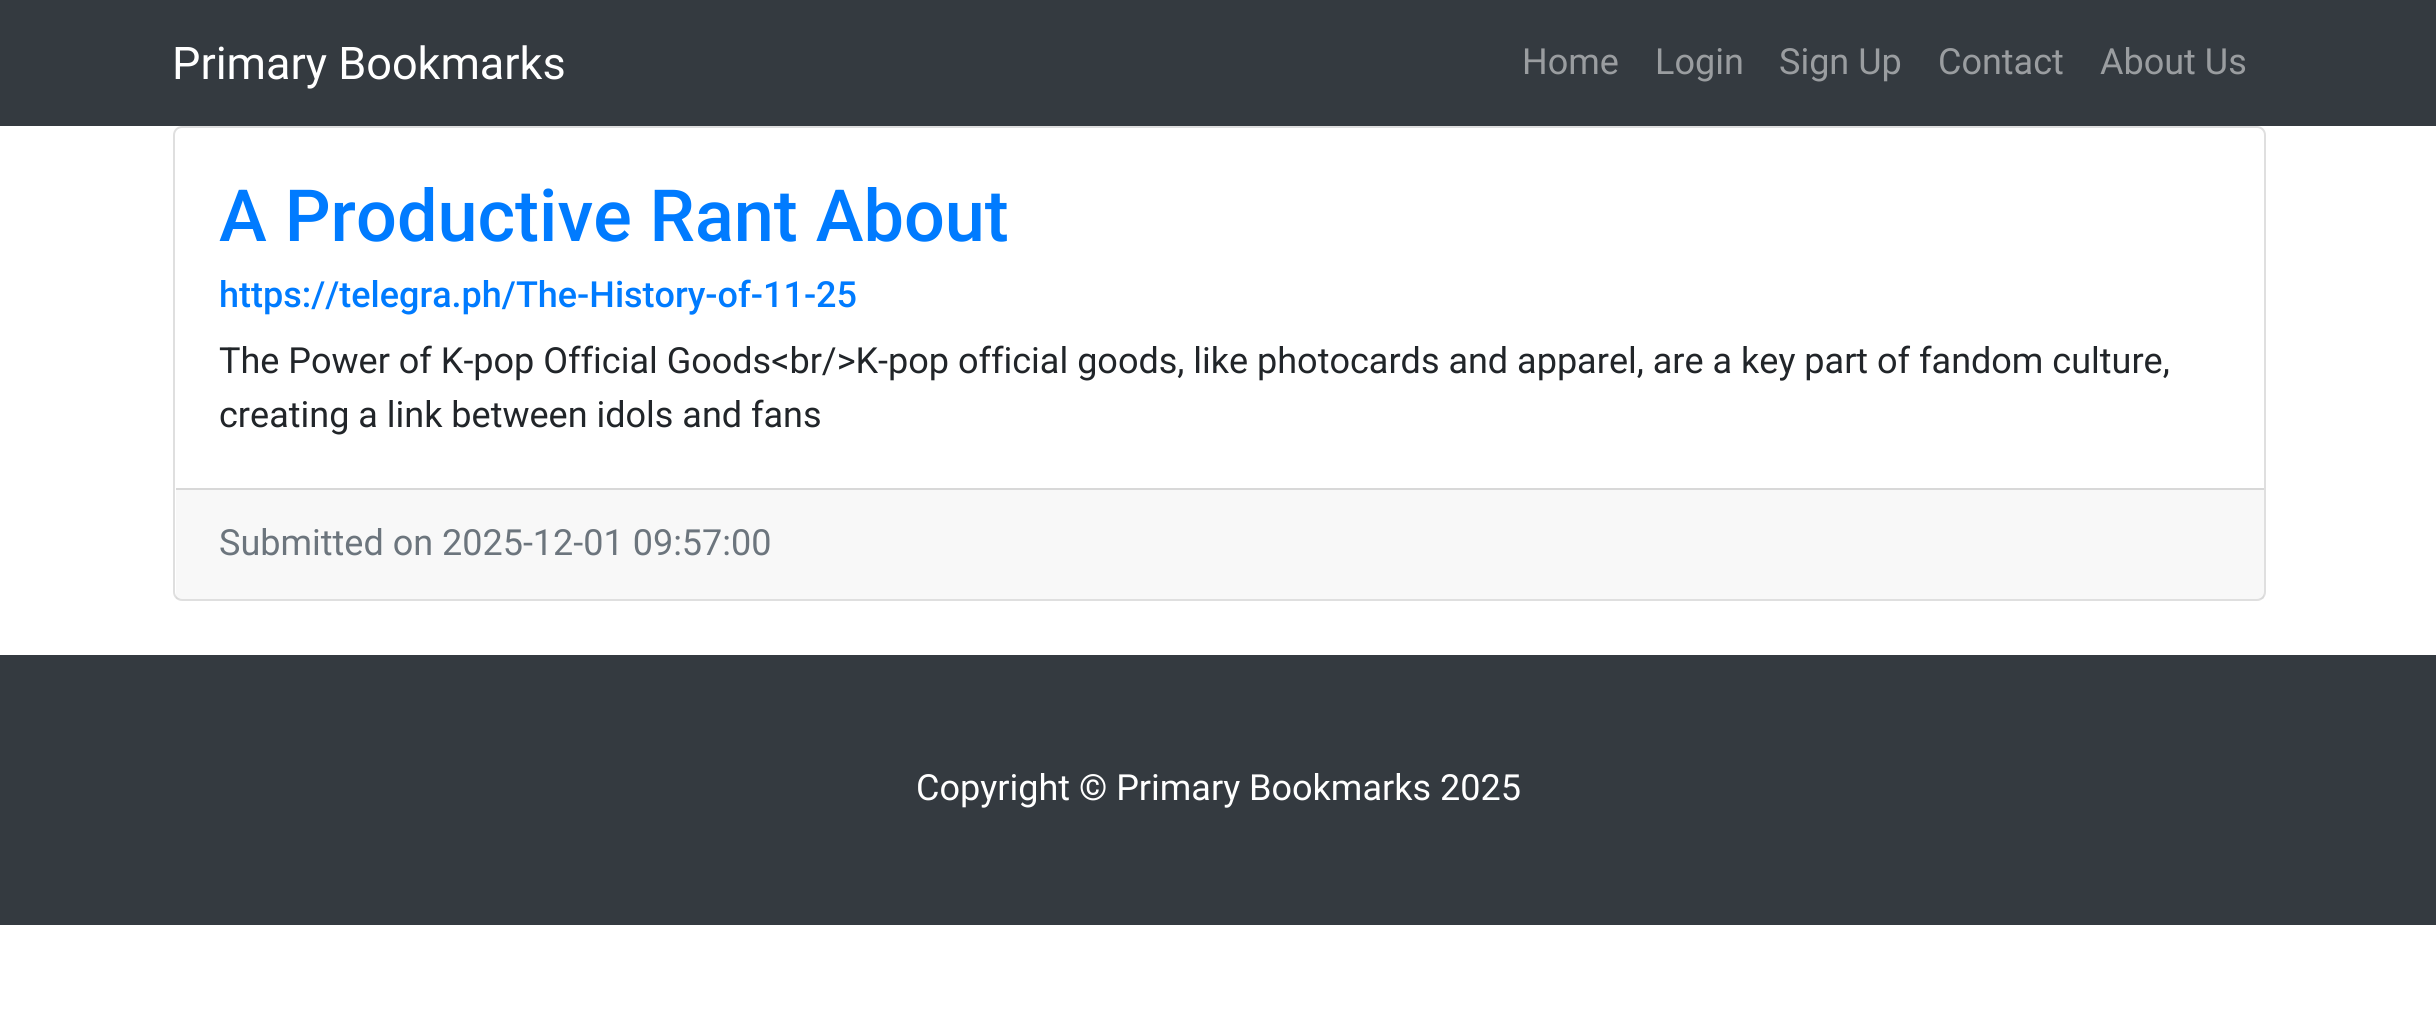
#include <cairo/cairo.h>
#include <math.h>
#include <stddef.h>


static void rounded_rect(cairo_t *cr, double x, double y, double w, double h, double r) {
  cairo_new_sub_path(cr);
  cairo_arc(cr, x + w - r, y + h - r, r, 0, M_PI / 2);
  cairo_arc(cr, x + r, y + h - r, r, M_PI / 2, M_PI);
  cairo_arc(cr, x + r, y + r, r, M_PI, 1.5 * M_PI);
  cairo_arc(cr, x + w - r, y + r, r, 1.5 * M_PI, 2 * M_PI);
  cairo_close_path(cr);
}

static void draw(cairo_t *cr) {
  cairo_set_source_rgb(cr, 1, 1, 1);
  cairo_paint(cr);
  cairo_set_source_rgb(cr, 52 / 255.0, 58 / 255.0, 64 / 255.0);
  cairo_rectangle(cr, 0, 0, 2436, 126);
  cairo_fill(cr);
  rounded_rect(cr, 174, 127, 2091, 473, 8);
  cairo_set_source_rgb(cr, 223 / 255.0, 223 / 255.0, 223 / 255.0);
  cairo_stroke(cr);
  cairo_set_source_rgba(cr, 0, 0, 0, 0.03);
  cairo_rectangle(cr, 176, 490, 2088, 109);
  cairo_fill(cr);
  cairo_set_source_rgb(cr, 216 / 255.0, 216 / 255.0, 216 / 255.0);
  cairo_rectangle(cr, 176, 488, 2088, 2);
  cairo_fill(cr);
  cairo_set_source_rgb(cr, 52 / 255.0, 58 / 255.0, 64 / 255.0);
  cairo_rectangle(cr, 0, 655, 2436, 270);
  cairo_fill(cr);
  cairo_select_font_face(cr, "Roboto", CAIRO_FONT_SLANT_NORMAL, CAIRO_FONT_WEIGHT_NORMAL);
  cairo_set_font_size(cr, 45);
  cairo_set_source_rgb(cr, 1, 1, 1);
  cairo_move_to(cr, 172, 79);
  cairo_show_text(cr, "Primary Bookmarks");
  cairo_set_font_size(cr, 36);
  cairo_set_source_rgb(cr, 154 / 255.0, 157 / 255.0, 160 / 255.0);
  cairo_move_to(cr, 1522, 74);
  cairo_show_text(cr, "Home");
  cairo_move_to(cr, 1655, 74);
  cairo_show_text(cr, "Login");
  cairo_move_to(cr, 1779, 74);
  cairo_show_text(cr, "Sign Up");
  cairo_move_to(cr, 1938, 74);
  cairo_show_text(cr, "Contact");
  cairo_move_to(cr, 2100, 74);
  cairo_show_text(cr, "About Us");
  cairo_select_font_face(cr, "Roboto Medium", CAIRO_FONT_SLANT_NORMAL, CAIRO_FONT_WEIGHT_NORMAL);
  cairo_set_font_size(cr, 72);
  cairo_set_source_rgb(cr, 0, 123 / 255.0, 1);
  cairo_move_to(cr, 219, 241);
  cairo_show_text(cr, "A Productive Rant About");
  cairo_set_font_size(cr, 36);
  cairo_move_to(cr, 219, 307);
  cairo_show_text(cr, "https://telegra.ph/The-History-of-11-25");
  cairo_select_font_face(cr, "Roboto", CAIRO_FONT_SLANT_NORMAL, CAIRO_FONT_WEIGHT_NORMAL);
  cairo_set_source_rgb(cr, 33 / 255.0, 37 / 255.0, 41 / 255.0);
  cairo_move_to(cr, 219, 373);
  cairo_show_text(cr, "The Power of K-pop Official Goods<br/>K-pop official goods, like photocards and apparel, are a key part of fandom culture,");
  cairo_move_to(cr, 219, 427);
  cairo_show_text(cr, "creating a link between idols and fans");
  cairo_set_source_rgb(cr, 108 / 255.0, 117 / 255.0, 125 / 255.0);
  cairo_move_to(cr, 219, 555);
  cairo_show_text(cr, "Submitted on 2025-12-01 09:57:00");
  cairo_set_source_rgb(cr, 1, 1, 1);
  cairo_move_to(cr, 916, 800);
  cairo_show_text(cr, "Copyright © Primary Bookmarks 2025");
}

int main(void) {
  cairo_surface_t *surface = cairo_image_surface_create(CAIRO_FORMAT_RGB24, 2436, 1023);
  cairo_t *cr = cairo_create(surface);
  cairo_font_options_t *options = cairo_font_options_create();
  cairo_font_options_set_hint_metrics(options, CAIRO_HINT_METRICS_OFF);
  cairo_font_options_set_hint_style(options, CAIRO_HINT_STYLE_NONE);
  cairo_set_font_options(cr, options);
  cairo_set_miter_limit(cr, 4);
  draw(cr);
  cairo_surface_write_to_png(surface, "out.png");
  cairo_font_options_destroy(options);
  cairo_destroy(cr);
  cairo_surface_destroy(surface);
  return 0;
}
